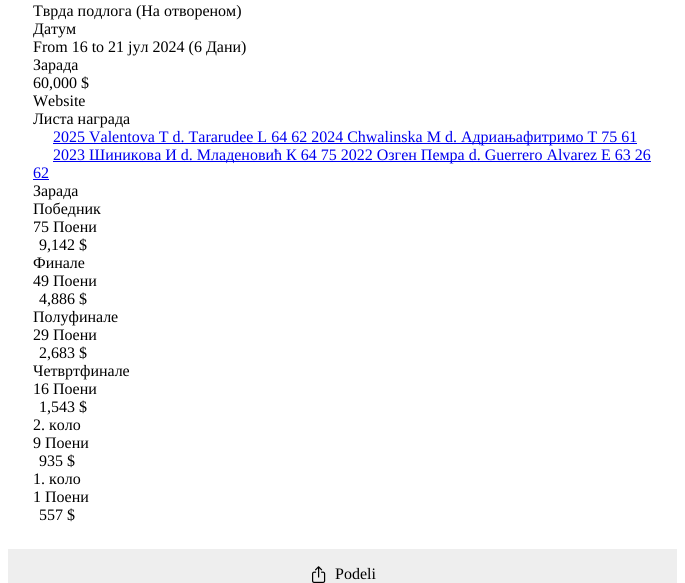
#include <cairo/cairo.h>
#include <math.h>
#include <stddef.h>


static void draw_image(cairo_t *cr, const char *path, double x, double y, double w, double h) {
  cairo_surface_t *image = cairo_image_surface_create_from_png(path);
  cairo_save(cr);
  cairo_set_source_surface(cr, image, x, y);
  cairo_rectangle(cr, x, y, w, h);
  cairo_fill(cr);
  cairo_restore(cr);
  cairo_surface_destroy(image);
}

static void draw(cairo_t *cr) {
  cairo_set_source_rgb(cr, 1, 1, 1);
  cairo_paint(cr);
  cairo_set_source_rgb(cr, 0, 0, 238 / 255.0);
  cairo_rectangle(cr, 53, 143, 544, 1);
  cairo_fill(cr);
  cairo_rectangle(cr, 597, 143, 40, 1);
  cairo_fill(cr);
  cairo_rectangle(cr, 53, 161, 598, 1);
  cairo_fill(cr);
  cairo_rectangle(cr, 33, 179, 16, 1);
  cairo_fill(cr);
  cairo_set_source_rgb(cr, 238 / 255.0, 238 / 255.0, 238 / 255.0);
  cairo_rectangle(cr, 8, 549, 669, 34);
  cairo_fill(cr);
  draw_image(cr, "images/1.png", 312, 566, 14, 17);
  cairo_select_font_face(cr, "Liberation Serif", CAIRO_FONT_SLANT_NORMAL, CAIRO_FONT_WEIGHT_NORMAL);
  cairo_set_font_size(cr, 16);
  cairo_set_source_rgb(cr, 0, 0, 0);
  cairo_move_to(cr, 33, 16);
  cairo_show_text(cr, "Тврда подлога (На отвореном)");
  cairo_move_to(cr, 33, 34);
  cairo_show_text(cr, "Датум");
  cairo_move_to(cr, 33, 52);
  cairo_show_text(cr, "From 16 to 21 јул 2024 (6 Дани)");
  cairo_move_to(cr, 33, 70);
  cairo_show_text(cr, "Зарада");
  cairo_move_to(cr, 33, 88);
  cairo_show_text(cr, "60,000 $");
  cairo_move_to(cr, 33, 106);
  cairo_show_text(cr, "Website");
  cairo_move_to(cr, 33, 124);
  cairo_show_text(cr, "Листа награда");
  cairo_set_source_rgb(cr, 0, 0, 238 / 255.0);
  cairo_move_to(cr, 53, 142);
  cairo_show_text(cr, "2025 Valentova T d. Tararudee L 64 62 2024 Chwalinska M d. Адриањафитримо Т 75 61");
  cairo_move_to(cr, 53, 160);
  cairo_show_text(cr, "2023 Шиникова И d. Младеновић К 64 75 2022 Озген Пемра d. Guerrero Alvarez E 63 26");
  cairo_move_to(cr, 33, 178);
  cairo_show_text(cr, "62");
  cairo_set_source_rgb(cr, 0, 0, 0);
  cairo_move_to(cr, 33, 196);
  cairo_show_text(cr, "Зарада");
  cairo_move_to(cr, 33, 214);
  cairo_show_text(cr, "Победник");
  cairo_move_to(cr, 33, 232);
  cairo_show_text(cr, "75 Поени");
  cairo_move_to(cr, 39, 250);
  cairo_show_text(cr, "9,142 $");
  cairo_move_to(cr, 33, 268);
  cairo_show_text(cr, "Финале");
  cairo_move_to(cr, 33, 286);
  cairo_show_text(cr, "49 Поени");
  cairo_move_to(cr, 39, 304);
  cairo_show_text(cr, "4,886 $");
  cairo_move_to(cr, 33, 322);
  cairo_show_text(cr, "Полуфинале");
  cairo_move_to(cr, 33, 340);
  cairo_show_text(cr, "29 Поени");
  cairo_move_to(cr, 39, 358);
  cairo_show_text(cr, "2,683 $");
  cairo_move_to(cr, 33, 376);
  cairo_show_text(cr, "Четвртфинале");
  cairo_move_to(cr, 33, 394);
  cairo_show_text(cr, "16 Поени");
  cairo_move_to(cr, 39, 412);
  cairo_show_text(cr, "1,543 $");
  cairo_move_to(cr, 33, 430);
  cairo_show_text(cr, "2. коло");
  cairo_move_to(cr, 33, 448);
  cairo_show_text(cr, "9 Поени");
  cairo_move_to(cr, 39, 466);
  cairo_show_text(cr, "935 $");
  cairo_move_to(cr, 33, 484);
  cairo_show_text(cr, "1. коло");
  cairo_move_to(cr, 33, 502);
  cairo_show_text(cr, "1 Поени");
  cairo_move_to(cr, 39, 520);
  cairo_show_text(cr, "557 $");
  cairo_move_to(cr, 335, 579);
  cairo_show_text(cr, "Podeli");
}

int main(void) {
  cairo_surface_t *surface = cairo_image_surface_create(CAIRO_FORMAT_RGB24, 685, 583);
  cairo_t *cr = cairo_create(surface);
  cairo_font_options_t *options = cairo_font_options_create();
  cairo_font_options_set_hint_metrics(options, CAIRO_HINT_METRICS_OFF);
  cairo_font_options_set_hint_style(options, CAIRO_HINT_STYLE_NONE);
  cairo_set_font_options(cr, options);
  cairo_set_miter_limit(cr, 4);
  draw(cr);
  cairo_surface_write_to_png(surface, "out.png");
  cairo_font_options_destroy(options);
  cairo_destroy(cr);
  cairo_surface_destroy(surface);
  return 0;
}
